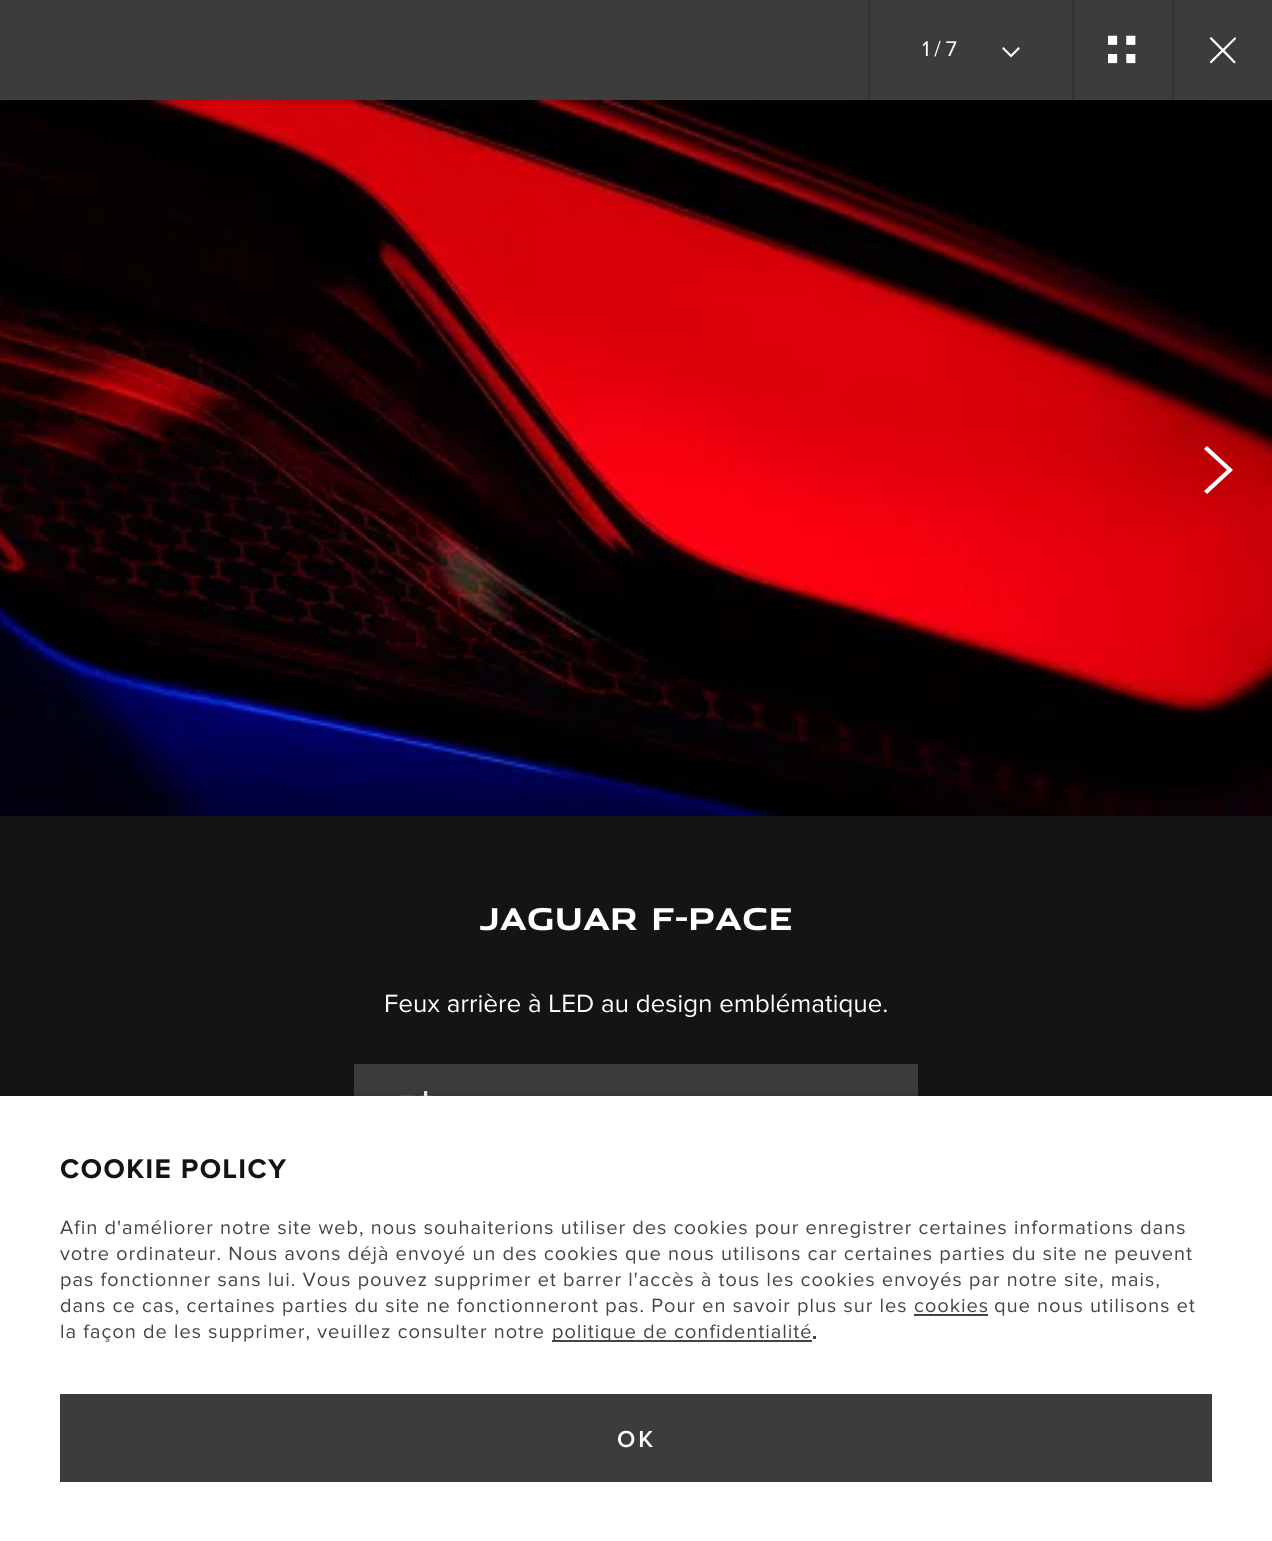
#include <cairo/cairo.h>
#include <math.h>
#include <stddef.h>


static void draw_spaced(cairo_t *cr, double x, double y, const char *s, double letter, double word) {
  cairo_move_to(cr, x, y);
  while (*s) {
    char ch[5] = {0};
    int n = 0;
    do ch[n++] = *s++; while ((*s & 0xC0) == 0x80);
    cairo_show_text(cr, ch);
    cairo_rel_move_to(cr, letter + word * (*ch == ' '), 0);
  }
}

static void rounded_rect(cairo_t *cr, double x, double y, double w, double h, double r) {
  cairo_new_sub_path(cr);
  cairo_arc(cr, x + w - r, y + h - r, r, 0, M_PI / 2);
  cairo_arc(cr, x + r, y + h - r, r, M_PI / 2, M_PI);
  cairo_arc(cr, x + r, y + r, r, M_PI, 1.5 * M_PI);
  cairo_arc(cr, x + w - r, y + r, r, 1.5 * M_PI, 2 * M_PI);
  cairo_close_path(cr);
}

static void draw_shadow(cairo_t *cr, double x, double y, double w, double h, double r, double blur, double alpha) {
  cairo_push_group_with_content(cr, CAIRO_CONTENT_ALPHA);
  cairo_set_operator(cr, CAIRO_OPERATOR_SOURCE);
  for (int i = 15; i >= -15 && fmin(w, h) + blur * i / 3 > 0; i -= 2) {
    double e = blur * i / 6;
    cairo_set_source_rgba(cr, 0, 0, 0, alpha * erfc((i - 1) / 8.5) / 2);
    rounded_rect(cr, x - e, y - e, w + 2 * e, h + 2 * e, fmax(0, fmin(r + e + blur * .6, fmin(w, h) / 2 + e)));
    cairo_fill(cr);
  }
  cairo_pattern_t *soft = cairo_pop_group(cr);
  cairo_mask(cr, soft);
  cairo_pattern_destroy(soft);
}

static void draw_image(cairo_t *cr, const char *path, double x, double y, double w, double h) {
  cairo_surface_t *image = cairo_image_surface_create_from_png(path);
  cairo_save(cr);
  cairo_set_source_surface(cr, image, x, y);
  cairo_rectangle(cr, x, y, w, h);
  cairo_fill(cr);
  cairo_restore(cr);
  cairo_surface_destroy(image);
}

static void draw(cairo_t *cr) {
  cairo_set_source_rgb(cr, 20 / 255.0, 20 / 255.0, 20 / 255.0);
  cairo_paint(cr);
  draw_image(cr, "images/4.png", 0, 100, 1272, 716);
  cairo_set_source_rgb(cr, 0, 0, 0);
  draw_shadow(cr, 0, 0, 1272, 100, 0, 4, 0.25);
  cairo_set_source_rgb(cr, 60 / 255.0, 60 / 255.0, 59 / 255.0);
  cairo_rectangle(cr, 0, 0, 1272, 100);
  cairo_fill(cr);
  cairo_set_source_rgb(cr, 51 / 255.0, 51 / 255.0, 51 / 255.0);
  cairo_rectangle(cr, 868, 0, 2, 100);
  cairo_fill(cr);
  draw_image(cr, "images/1.png", 922, 40, 35, 17);
  cairo_set_source_rgb(cr, 1, 1, 1);
  cairo_new_path(cr);
  cairo_move_to(cr, 1011, 57.5);
  cairo_line_to(cr, 1002, 48.5);
  cairo_line_to(cr, 1003.5, 47);
  cairo_line_to(cr, 1011, 54.5);
  cairo_line_to(cr, 1018.5, 47);
  cairo_line_to(cr, 1020, 48.5);
  cairo_close_path(cr);
  cairo_fill(cr);
  cairo_set_source_rgb(cr, 51 / 255.0, 51 / 255.0, 51 / 255.0);
  cairo_rectangle(cr, 1072, 0, 2, 100);
  cairo_fill(cr);
  draw_image(cr, "images/2.png", 1108, 35, 28, 29);
  cairo_rectangle(cr, 1172, 0, 2, 100);
  cairo_fill(cr);
  draw_image(cr, "images/3.png", 1210, 37, 26, 27);
  cairo_set_source_rgb(cr, 1, 1, 1);
  cairo_new_path(cr);
  cairo_move_to(cr, 1207, 494);
  cairo_line_to(cr, 1204, 491);
  cairo_line_to(cr, 1227, 470);
  cairo_line_to(cr, 1204, 449);
  cairo_line_to(cr, 1207, 446);
  cairo_line_to(cr, 1233, 470);
  cairo_close_path(cr);
  cairo_fill(cr);
  draw_image(cr, "images/5.png", 386, 993, 501, 25);
  cairo_set_source_rgb(cr, 60 / 255.0, 60 / 255.0, 59 / 255.0);
  cairo_rectangle(cr, 354, 1064, 564, 32);
  cairo_fill(cr);
  draw_image(cr, "images/6.png", 401, 1091, 31, 5);
  cairo_set_source_rgb(cr, 1 / 255.0, 1 / 255.0, 1 / 255.0);
  draw_shadow(cr, 0, 1096, 1272, 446, 0, 6, 0.25);
  cairo_set_source_rgb(cr, 1, 1, 1);
  cairo_rectangle(cr, 0, 1096, 1272, 445);
  cairo_fill(cr);
  draw_image(cr, "images/7.png", 60, 1159, 227, 20);
  draw_image(cr, "images/8.png", 60, 1220, 1125, 18);
  draw_image(cr, "images/9.png", 60, 1246, 1132, 18);
  draw_image(cr, "images/10.png", 61, 1272, 1098, 18);
  draw_image(cr, "images/11.png", 60, 1298, 846, 18);
  draw_image(cr, "images/12.png", 914, 1298, 74, 15);
  cairo_set_source_rgb(cr, 68 / 255.0, 68 / 255.0, 68 / 255.0);
  cairo_rectangle(cr, 914, 1314, 74, 2);
  cairo_fill(cr);
  draw_image(cr, "images/13.png", 995, 1298, 200, 18);
  draw_image(cr, "images/14.png", 61, 1324, 482, 18);
  draw_image(cr, "images/15.png", 553, 1324, 258, 16);
  cairo_rectangle(cr, 552, 1340, 260, 2);
  cairo_fill(cr);
  cairo_rectangle(cr, 813, 1336, 3, 3);
  cairo_fill(cr);
  cairo_set_source_rgb(cr, 60 / 255.0, 60 / 255.0, 59 / 255.0);
  cairo_rectangle(cr, 60, 1394, 1152, 88);
  cairo_fill(cr);
  cairo_select_font_face(cr, "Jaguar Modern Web", CAIRO_FONT_SLANT_NORMAL, CAIRO_FONT_WEIGHT_BOLD);
  cairo_set_font_size(cr, 30);
  cairo_set_source_rgb(cr, 1, 1, 1);
  cairo_move_to(cr, 479, 930);
  cairo_show_text(cr, "JAGUAR F-PACE");
  cairo_select_font_face(cr, "Proxima Nova SemiBold", CAIRO_FONT_SLANT_NORMAL, CAIRO_FONT_WEIGHT_NORMAL);
  cairo_set_font_size(cr, 24);
  draw_spaced(cr, 617, 1447, "OK", 3, 0);
}

int main(void) {
  cairo_surface_t *surface = cairo_image_surface_create(CAIRO_FORMAT_RGB24, 1272, 1541);
  cairo_t *cr = cairo_create(surface);
  cairo_font_options_t *options = cairo_font_options_create();
  cairo_font_options_set_hint_metrics(options, CAIRO_HINT_METRICS_OFF);
  cairo_font_options_set_hint_style(options, CAIRO_HINT_STYLE_NONE);
  cairo_set_font_options(cr, options);
  cairo_set_miter_limit(cr, 4);
  draw(cr);
  cairo_surface_write_to_png(surface, "out.png");
  cairo_font_options_destroy(options);
  cairo_destroy(cr);
  cairo_surface_destroy(surface);
  return 0;
}
